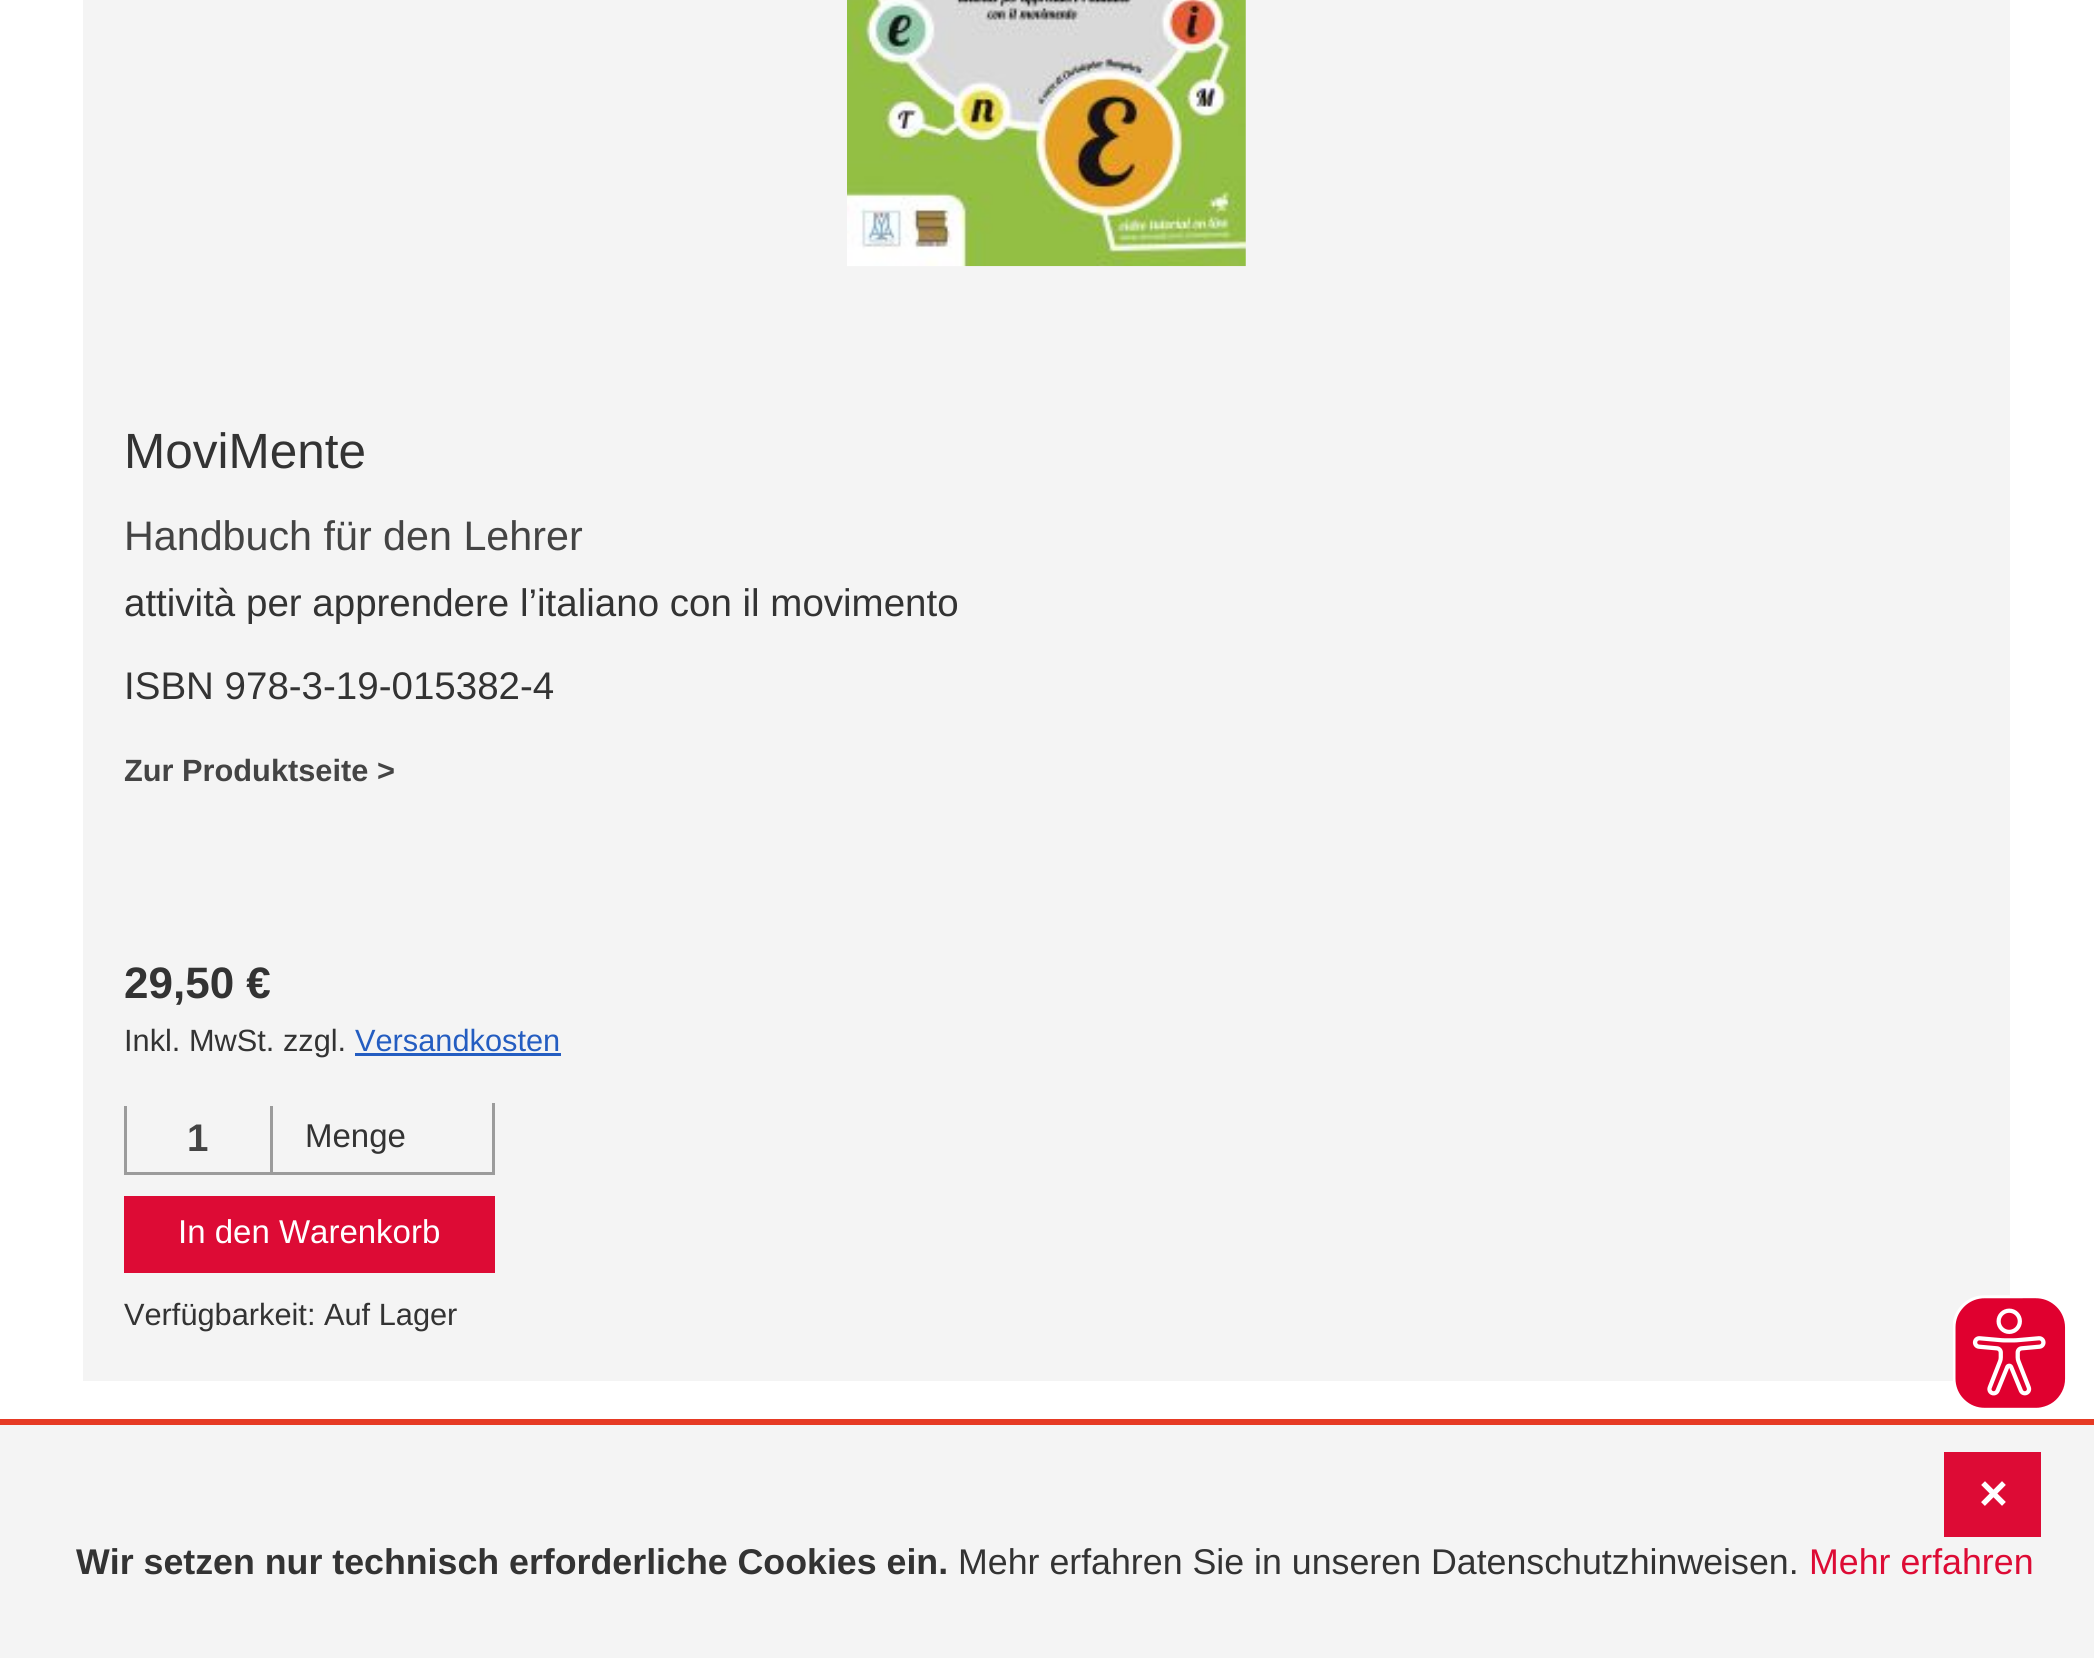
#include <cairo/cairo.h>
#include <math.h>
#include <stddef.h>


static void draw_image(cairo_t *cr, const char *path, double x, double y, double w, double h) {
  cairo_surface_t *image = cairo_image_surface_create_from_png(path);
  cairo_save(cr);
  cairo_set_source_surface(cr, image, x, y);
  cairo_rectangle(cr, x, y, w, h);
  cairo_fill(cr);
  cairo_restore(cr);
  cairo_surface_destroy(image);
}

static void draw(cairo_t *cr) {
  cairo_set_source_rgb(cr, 1, 1, 1);
  cairo_paint(cr);
  cairo_set_source_rgb(cr, 244 / 255.0, 244 / 255.0, 244 / 255.0);
  cairo_rectangle(cr, 83, 0, 1927, 1381);
  cairo_fill(cr);
  draw_image(cr, "images/1.png", 847, 0, 399, 267);
  cairo_set_source_rgb(cr, 36 / 255.0, 93 / 255.0, 193 / 255.0);
  cairo_rectangle(cr, 355, 1053, 206, 3);
  cairo_fill(cr);
  cairo_set_source_rgb(cr, 155 / 255.0, 155 / 255.0, 155 / 255.0);
  cairo_rectangle(cr, 124, 1172, 371, 3);
  cairo_fill(cr);
  cairo_rectangle(cr, 270, 1106, 3, 66);
  cairo_fill(cr);
  cairo_rectangle(cr, 124, 1106, 3, 66);
  cairo_fill(cr);
  cairo_rectangle(cr, 492, 1103, 3, 69);
  cairo_fill(cr);
  cairo_set_source_rgb(cr, 221 / 255.0, 11 / 255.0, 53 / 255.0);
  cairo_rectangle(cr, 124, 1196, 371, 77);
  cairo_fill(cr);
  draw_image(cr, "images/2.png", 1953, 1295, 113, 113);
  cairo_set_source_rgb(cr, 244 / 255.0, 244 / 255.0, 244 / 255.0);
  cairo_rectangle(cr, 0, 1425, 2094, 233);
  cairo_fill(cr);
  cairo_set_source_rgb(cr, 230 / 255.0, 58 / 255.0, 36 / 255.0);
  cairo_rectangle(cr, 0, 1419, 2094, 6);
  cairo_fill(cr);
  cairo_set_source_rgb(cr, 221 / 255.0, 11 / 255.0, 53 / 255.0);
  cairo_rectangle(cr, 1944, 1452, 97, 85);
  cairo_fill(cr);
  cairo_select_font_face(cr, "Liberation Sans", CAIRO_FONT_SLANT_NORMAL, CAIRO_FONT_WEIGHT_NORMAL);
  cairo_set_font_size(cr, 49.5);
  cairo_set_source_rgb(cr, 51 / 255.0, 51 / 255.0, 51 / 255.0);
  cairo_move_to(cr, 124, 468);
  cairo_show_text(cr, "MoviMente");
  cairo_set_font_size(cr, 41.25);
  cairo_set_source_rgb(cr, 68 / 255.0, 68 / 255.0, 68 / 255.0);
  cairo_move_to(cr, 124, 550);
  cairo_show_text(cr, "Handbuch für den Lehrer");
  cairo_set_font_size(cr, 38.5);
  cairo_set_source_rgb(cr, 51 / 255.0, 51 / 255.0, 51 / 255.0);
  cairo_move_to(cr, 124, 616);
  cairo_show_text(cr, "attività per apprendere l’italiano con il movimento");
  cairo_move_to(cr, 124, 699);
  cairo_show_text(cr, "ISBN 978-3-19-015382-4");
  cairo_select_font_face(cr, "Liberation Sans", CAIRO_FONT_SLANT_NORMAL, CAIRO_FONT_WEIGHT_BOLD);
  cairo_set_font_size(cr, 30.75);
  cairo_set_source_rgb(cr, 68 / 255.0, 68 / 255.0, 68 / 255.0);
  cairo_move_to(cr, 124, 781);
  cairo_show_text(cr, "Zur Produktseite >");
  cairo_set_font_size(cr, 44);
  cairo_set_source_rgb(cr, 51 / 255.0, 51 / 255.0, 51 / 255.0);
  cairo_move_to(cr, 124, 998);
  cairo_show_text(cr, "29,50 €");
  cairo_select_font_face(cr, "Liberation Sans", CAIRO_FONT_SLANT_NORMAL, CAIRO_FONT_WEIGHT_NORMAL);
  cairo_set_font_size(cr, 30.75);
  cairo_move_to(cr, 124, 1051);
  cairo_show_text(cr, "Inkl. MwSt. zzgl.");
  cairo_set_source_rgb(cr, 36 / 255.0, 93 / 255.0, 193 / 255.0);
  cairo_move_to(cr, 355, 1051);
  cairo_show_text(cr, "Versandkosten");
  cairo_select_font_face(cr, "Liberation Sans", CAIRO_FONT_SLANT_NORMAL, CAIRO_FONT_WEIGHT_BOLD);
  cairo_set_font_size(cr, 38.5);
  cairo_set_source_rgb(cr, 68 / 255.0, 68 / 255.0, 68 / 255.0);
  cairo_move_to(cr, 187, 1151);
  cairo_show_text(cr, "1");
  cairo_select_font_face(cr, "Liberation Sans", CAIRO_FONT_SLANT_NORMAL, CAIRO_FONT_WEIGHT_NORMAL);
  cairo_set_font_size(cr, 33);
  cairo_set_source_rgb(cr, 51 / 255.0, 51 / 255.0, 51 / 255.0);
  cairo_move_to(cr, 305, 1147);
  cairo_show_text(cr, "Menge");
  cairo_set_source_rgb(cr, 1, 1, 1);
  cairo_move_to(cr, 178, 1243);
  cairo_show_text(cr, "In den Warenkorb");
  cairo_set_font_size(cr, 30.75);
  cairo_set_source_rgb(cr, 51 / 255.0, 51 / 255.0, 51 / 255.0);
  cairo_move_to(cr, 124, 1325);
  cairo_show_text(cr, "Verfügbarkeit: Auf Lager");
  cairo_select_font_face(cr, "Liberation Sans", CAIRO_FONT_SLANT_NORMAL, CAIRO_FONT_WEIGHT_BOLD);
  cairo_set_font_size(cr, 49.5);
  cairo_set_source_rgb(cr, 1, 1, 1);
  cairo_move_to(cr, 1979, 1510);
  cairo_show_text(cr, "×");
  cairo_set_font_size(cr, 35.75);
  cairo_set_source_rgb(cr, 51 / 255.0, 51 / 255.0, 51 / 255.0);
  cairo_move_to(cr, 76, 1574);
  cairo_show_text(cr, "Wir setzen nur technisch erforderliche Cookies ein.");
  cairo_select_font_face(cr, "Liberation Sans", CAIRO_FONT_SLANT_NORMAL, CAIRO_FONT_WEIGHT_NORMAL);
  cairo_move_to(cr, 958, 1574);
  cairo_show_text(cr, "Mehr erfahren Sie in unseren Datenschutzhinweisen.");
  cairo_set_source_rgb(cr, 221 / 255.0, 11 / 255.0, 53 / 255.0);
  cairo_move_to(cr, 1809, 1574);
  cairo_show_text(cr, "Mehr erfahren");
}

int main(void) {
  cairo_surface_t *surface = cairo_image_surface_create(CAIRO_FORMAT_RGB24, 2094, 1658);
  cairo_t *cr = cairo_create(surface);
  cairo_font_options_t *options = cairo_font_options_create();
  cairo_font_options_set_hint_metrics(options, CAIRO_HINT_METRICS_OFF);
  cairo_font_options_set_hint_style(options, CAIRO_HINT_STYLE_NONE);
  cairo_set_font_options(cr, options);
  cairo_set_miter_limit(cr, 4);
  draw(cr);
  cairo_surface_write_to_png(surface, "out.png");
  cairo_font_options_destroy(options);
  cairo_destroy(cr);
  cairo_surface_destroy(surface);
  return 0;
}
